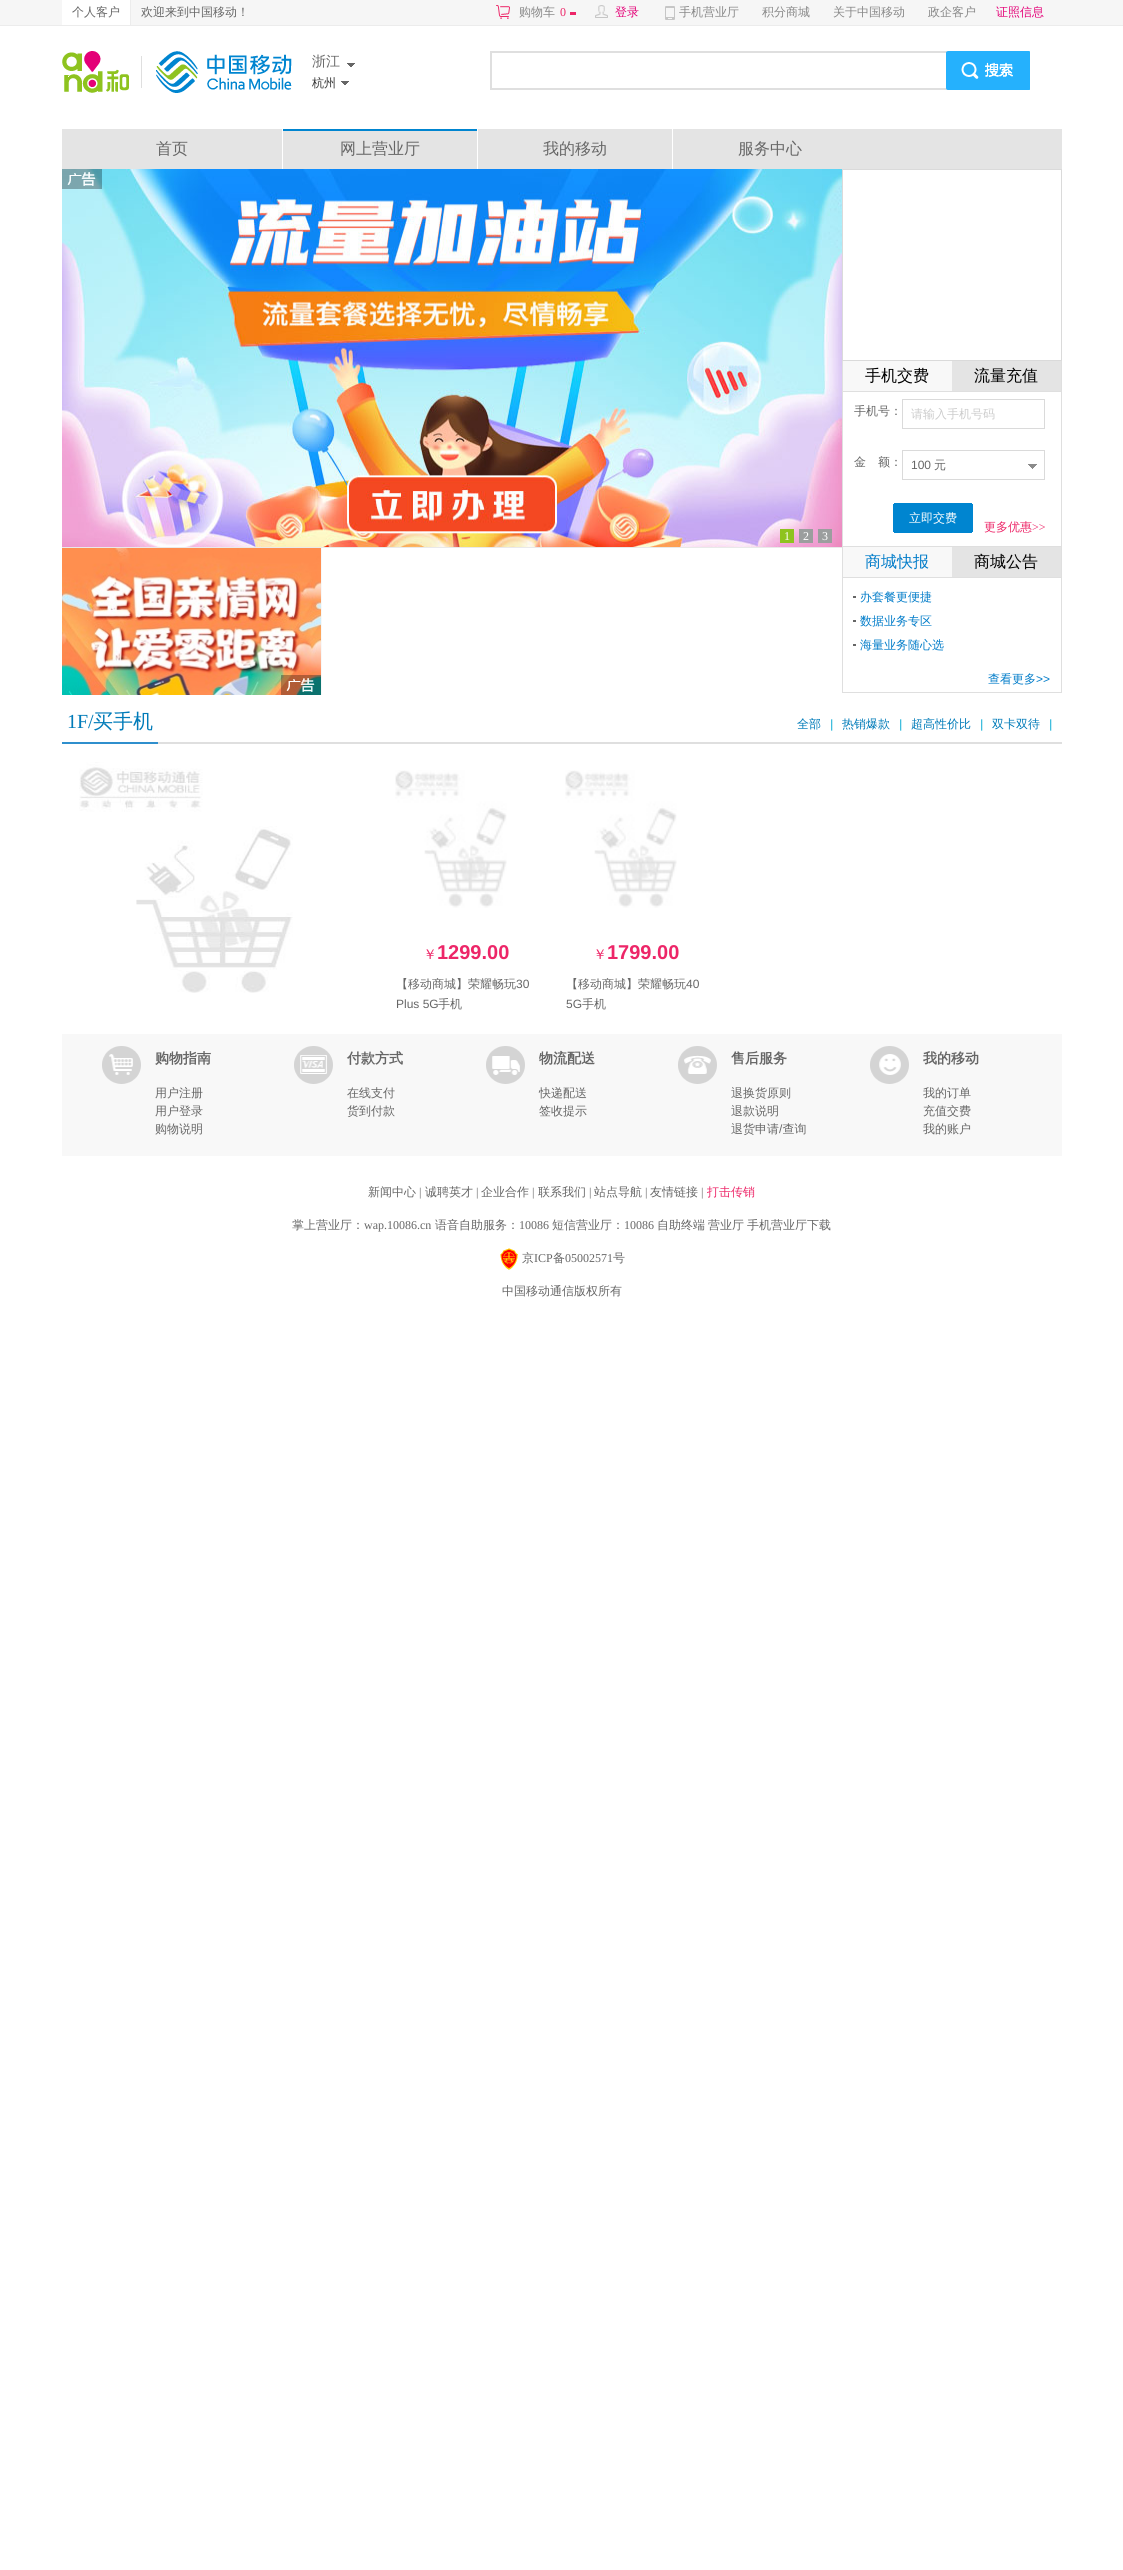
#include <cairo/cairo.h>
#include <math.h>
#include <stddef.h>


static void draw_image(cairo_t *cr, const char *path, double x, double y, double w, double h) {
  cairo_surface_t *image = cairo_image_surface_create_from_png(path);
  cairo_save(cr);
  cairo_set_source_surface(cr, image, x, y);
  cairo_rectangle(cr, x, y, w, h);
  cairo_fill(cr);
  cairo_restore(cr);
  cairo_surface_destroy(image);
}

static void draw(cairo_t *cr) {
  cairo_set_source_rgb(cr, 1, 1, 1);
  cairo_paint(cr);
  cairo_set_source_rgb(cr, 246 / 255.0, 246 / 255.0, 246 / 255.0);
  cairo_rectangle(cr, 0, 0, 1123, 25);
  cairo_fill(cr);
  cairo_set_source_rgb(cr, 236 / 255.0, 236 / 255.0, 236 / 255.0);
  cairo_rectangle(cr, 0, 25, 1123, 1);
  cairo_fill(cr);
  cairo_set_source_rgb(cr, 1, 1, 1);
  cairo_rectangle(cr, 62, 0, 68, 25);
  cairo_fill(cr);
  cairo_set_source_rgb(cr, 236 / 255.0, 236 / 255.0, 236 / 255.0);
  cairo_rectangle(cr, 130, 0, 1, 25);
  cairo_fill(cr);
  draw_image(cr, "images/1.png", 496, 5, 14, 14);
  cairo_set_source_rgb(cr, 237 / 255.0, 38 / 255.0, 104 / 255.0);
  cairo_rectangle(cr, 570, 12, 6, 3);
  cairo_fill(cr);
  draw_image(cr, "images/2.png", 595, 5, 13, 13);
  draw_image(cr, "images/3.png", 665, 6, 10, 14);
  draw_image(cr, "images/4.png", 62, 51, 230, 42);
  draw_image(cr, "images/5.png", 347, 63, 8, 4);
  draw_image(cr, "images/5.png", 341, 81, 8, 4);
  draw_image(cr, "images/6.png", 490, 51, 540, 39);
  cairo_set_source_rgb(cr, 228 / 255.0, 228 / 255.0, 228 / 255.0);
  cairo_rectangle(cr, 62, 129, 1000, 40);
  cairo_fill(cr);
  cairo_set_source_rgb(cr, 1, 1, 1);
  cairo_rectangle(cr, 282, 129, 1, 40);
  cairo_fill(cr);
  cairo_set_source_rgb(cr, 0, 133 / 255.0, 208 / 255.0);
  cairo_rectangle(cr, 283, 129, 194, 2);
  cairo_fill(cr);
  cairo_set_source_rgb(cr, 1, 1, 1);
  cairo_rectangle(cr, 477, 129, 1, 40);
  cairo_fill(cr);
  cairo_rectangle(cr, 672, 129, 1, 40);
  cairo_fill(cr);
  cairo_set_source_rgb(cr, 233 / 255.0, 233 / 255.0, 233 / 255.0);
  cairo_rectangle(cr, 62, 547, 780, 1);
  cairo_fill(cr);
  draw_image(cr, "images/7.png", 62, 169, 780, 378);
  draw_image(cr, "images/8.png", 62, 169, 40, 20);
  cairo_set_source_rgb(cr, 142 / 255.0, 195 / 255.0, 31 / 255.0);
  cairo_rectangle(cr, 780, 529, 14, 14);
  cairo_fill(cr);
  cairo_set_source_rgb(cr, 155 / 255.0, 158 / 255.0, 158 / 255.0);
  cairo_rectangle(cr, 799, 529, 14, 14);
  cairo_fill(cr);
  cairo_rectangle(cr, 818, 529, 14, 14);
  cairo_fill(cr);
  cairo_set_source_rgb(cr, 248 / 255.0, 248 / 255.0, 248 / 255.0);
  cairo_rectangle(cr, 321, 548, 1, 147);
  cairo_fill(cr);
  draw_image(cr, "images/9.png", 62, 548, 259, 147);
  draw_image(cr, "images/10.png", 281, 675, 40, 20);
  cairo_rectangle(cr, 842.5, 169.5, 219, 191);
  cairo_set_source_rgb(cr, 218 / 255.0, 218 / 255.0, 218 / 255.0);
  cairo_set_line_width(cr, 1);
  cairo_stroke(cr);
  cairo_set_source_rgb(cr, 223 / 255.0, 223 / 255.0, 223 / 255.0);
  cairo_rectangle(cr, 1061, 361, 1, 332);
  cairo_fill(cr);
  cairo_rectangle(cr, 842, 546, 220, 1);
  cairo_fill(cr);
  cairo_rectangle(cr, 842, 361, 1, 186);
  cairo_fill(cr);
  cairo_set_source_rgb(cr, 228 / 255.0, 228 / 255.0, 228 / 255.0);
  cairo_rectangle(cr, 952, 361, 109, 30);
  cairo_fill(cr);
  cairo_set_source_rgb(cr, 223 / 255.0, 223 / 255.0, 223 / 255.0);
  cairo_rectangle(cr, 843, 391, 218, 1);
  cairo_fill(cr);
  cairo_set_source_rgb(cr, 248 / 255.0, 248 / 255.0, 248 / 255.0);
  cairo_rectangle(cr, 843, 361, 109, 30);
  cairo_fill(cr);
  cairo_rectangle(cr, 902.5, 399.5, 142, 29);
  cairo_set_source_rgb(cr, 218 / 255.0, 218 / 255.0, 218 / 255.0);
  cairo_stroke(cr);
  cairo_rectangle(cr, 902.5, 450.5, 142, 29);
  cairo_stroke(cr);
  draw_image(cr, "images/11.png", 1028, 464, 9, 5);
  cairo_set_source_rgb(cr, 0, 133 / 255.0, 208 / 255.0);
  cairo_rectangle(cr, 894, 503, 78, 30);
  cairo_fill(cr);
  cairo_rectangle(cr, 893, 504, 1, 28);
  cairo_fill(cr);
  cairo_rectangle(cr, 972, 504, 1, 28);
  cairo_fill(cr);
  cairo_set_source_rgb(cr, 223 / 255.0, 223 / 255.0, 223 / 255.0);
  cairo_rectangle(cr, 842, 692, 220, 1);
  cairo_fill(cr);
  cairo_rectangle(cr, 842, 547, 1, 146);
  cairo_fill(cr);
  cairo_set_source_rgb(cr, 228 / 255.0, 228 / 255.0, 228 / 255.0);
  cairo_rectangle(cr, 952, 547, 109, 30);
  cairo_fill(cr);
  cairo_set_source_rgb(cr, 223 / 255.0, 223 / 255.0, 223 / 255.0);
  cairo_rectangle(cr, 843, 577, 218, 1);
  cairo_fill(cr);
  cairo_set_source_rgb(cr, 248 / 255.0, 248 / 255.0, 248 / 255.0);
  cairo_rectangle(cr, 843, 547, 109, 30);
  cairo_fill(cr);
  cairo_set_source_rgb(cr, 102 / 255.0, 102 / 255.0, 102 / 255.0);
  cairo_rectangle(cr, 853, 596, 3, 2);
  cairo_fill(cr);
  cairo_rectangle(cr, 853, 620, 3, 2);
  cairo_fill(cr);
  cairo_rectangle(cr, 853, 644, 3, 2);
  cairo_fill(cr);
  cairo_set_source_rgb(cr, 223 / 255.0, 223 / 255.0, 223 / 255.0);
  cairo_rectangle(cr, 158, 742, 904, 2);
  cairo_fill(cr);
  cairo_set_source_rgb(cr, 47 / 255.0, 143 / 255.0, 205 / 255.0);
  cairo_rectangle(cr, 62, 742, 96, 2);
  cairo_fill(cr);
  draw_image(cr, "images/12.png", 79, 762, 214, 231);
  draw_image(cr, "images/13.png", 395, 770, 112, 138);
  draw_image(cr, "images/13.png", 565, 770, 112, 138);
  cairo_set_source_rgb(cr, 248 / 255.0, 248 / 255.0, 248 / 255.0);
  cairo_rectangle(cr, 62, 1034, 1000, 122);
  cairo_fill(cr);
  draw_image(cr, "images/14.png", 102, 1046, 39, 38);
  draw_image(cr, "images/15.png", 294, 1046, 39, 38);
  draw_image(cr, "images/16.png", 486, 1046, 39, 38);
  draw_image(cr, "images/17.png", 678, 1046, 39, 38);
  draw_image(cr, "images/18.png", 870, 1046, 39, 38);
  draw_image(cr, "images/19.png", 500, 1248, 18, 22);
  cairo_select_font_face(cr, "WenQuanYi Zen Hei Medium", CAIRO_FONT_SLANT_NORMAL, CAIRO_FONT_WEIGHT_NORMAL);
  cairo_set_font_size(cr, 12);
  cairo_set_source_rgb(cr, 102 / 255.0, 102 / 255.0, 102 / 255.0);
  cairo_move_to(cr, 72, 16);
  cairo_show_text(cr, "个人客户");
  cairo_move_to(cr, 141, 16);
  cairo_show_text(cr, "欢迎来到中国移动！");
  cairo_set_source_rgb(cr, 136 / 255.0, 136 / 255.0, 136 / 255.0);
  cairo_move_to(cr, 519, 16);
  cairo_show_text(cr, "购物车");
  cairo_select_font_face(cr, "Liberation Serif", CAIRO_FONT_SLANT_NORMAL, CAIRO_FONT_WEIGHT_NORMAL);
  cairo_set_source_rgb(cr, 237 / 255.0, 38 / 255.0, 104 / 255.0);
  cairo_move_to(cr, 560, 16);
  cairo_show_text(cr, "0");
  cairo_select_font_face(cr, "WenQuanYi Zen Hei Medium", CAIRO_FONT_SLANT_NORMAL, CAIRO_FONT_WEIGHT_NORMAL);
  cairo_set_source_rgb(cr, 228 / 255.0, 0, 119 / 255.0);
  cairo_move_to(cr, 615, 16);
  cairo_show_text(cr, "登录");
  cairo_set_source_rgb(cr, 136 / 255.0, 136 / 255.0, 136 / 255.0);
  cairo_move_to(cr, 679, 16);
  cairo_show_text(cr, "手机营业厅");
  cairo_move_to(cr, 762, 16);
  cairo_show_text(cr, "积分商城");
  cairo_move_to(cr, 833, 16);
  cairo_show_text(cr, "关于中国移动");
  cairo_move_to(cr, 928, 16);
  cairo_show_text(cr, "政企客户");
  cairo_set_source_rgb(cr, 228 / 255.0, 0, 119 / 255.0);
  cairo_move_to(cr, 996, 16);
  cairo_show_text(cr, "证照信息");
  cairo_set_font_size(cr, 14);
  cairo_set_source_rgb(cr, 102 / 255.0, 102 / 255.0, 102 / 255.0);
  cairo_move_to(cr, 312, 66);
  cairo_show_text(cr, "浙江");
  cairo_set_font_size(cr, 12);
  cairo_set_source_rgb(cr, 51 / 255.0, 51 / 255.0, 51 / 255.0);
  cairo_move_to(cr, 312, 87);
  cairo_show_text(cr, "杭州");
  cairo_set_font_size(cr, 16);
  cairo_set_source_rgb(cr, 102 / 255.0, 102 / 255.0, 102 / 255.0);
  cairo_move_to(cr, 156, 154);
  cairo_show_text(cr, "首页");
  cairo_move_to(cr, 340, 154);
  cairo_show_text(cr, "网上营业厅");
  cairo_move_to(cr, 543, 154);
  cairo_show_text(cr, "我的移动");
  cairo_move_to(cr, 738, 154);
  cairo_show_text(cr, "服务中心");
  cairo_select_font_face(cr, "Liberation Serif", CAIRO_FONT_SLANT_NORMAL, CAIRO_FONT_WEIGHT_NORMAL);
  cairo_set_font_size(cr, 12);
  cairo_set_source_rgb(cr, 1, 1, 1);
  cairo_move_to(cr, 784, 540);
  cairo_show_text(cr, "1");
  cairo_move_to(cr, 803, 540);
  cairo_show_text(cr, "2");
  cairo_move_to(cr, 822, 540);
  cairo_show_text(cr, "3");
  cairo_select_font_face(cr, "WenQuanYi Zen Hei Medium", CAIRO_FONT_SLANT_NORMAL, CAIRO_FONT_WEIGHT_NORMAL);
  cairo_set_font_size(cr, 16);
  cairo_set_source_rgb(cr, 0, 0, 0);
  cairo_move_to(cr, 865, 381);
  cairo_show_text(cr, "手机交费");
  cairo_move_to(cr, 974, 381);
  cairo_show_text(cr, "流量充值");
  cairo_set_font_size(cr, 12);
  cairo_set_source_rgb(cr, 102 / 255.0, 102 / 255.0, 102 / 255.0);
  cairo_move_to(cr, 854, 415);
  cairo_show_text(cr, "手机号：");
  cairo_set_source_rgb(cr, 204 / 255.0, 204 / 255.0, 204 / 255.0);
  cairo_move_to(cr, 911, 418);
  cairo_show_text(cr, "请输入手机号码");
  cairo_set_source_rgb(cr, 102 / 255.0, 102 / 255.0, 102 / 255.0);
  cairo_move_to(cr, 854, 466);
  cairo_show_text(cr, "金　额：");
  cairo_select_font_face(cr, "Liberation Sans", CAIRO_FONT_SLANT_NORMAL, CAIRO_FONT_WEIGHT_NORMAL);
  cairo_move_to(cr, 911, 469);
  cairo_show_text(cr, "100");
  cairo_select_font_face(cr, "WenQuanYi Zen Hei Medium", CAIRO_FONT_SLANT_NORMAL, CAIRO_FONT_WEIGHT_NORMAL);
  cairo_move_to(cr, 934, 469);
  cairo_show_text(cr, "元");
  cairo_set_source_rgb(cr, 1, 1, 1);
  cairo_move_to(cr, 909, 522);
  cairo_show_text(cr, "立即交费");
  cairo_set_source_rgb(cr, 237 / 255.0, 38 / 255.0, 104 / 255.0);
  cairo_move_to(cr, 984, 531);
  cairo_show_text(cr, "更多优惠");
  cairo_select_font_face(cr, "Liberation Serif", CAIRO_FONT_SLANT_NORMAL, CAIRO_FONT_WEIGHT_NORMAL);
  cairo_move_to(cr, 1032, 531);
  cairo_show_text(cr, ">>");
  cairo_select_font_face(cr, "WenQuanYi Zen Hei Medium", CAIRO_FONT_SLANT_NORMAL, CAIRO_FONT_WEIGHT_NORMAL);
  cairo_set_font_size(cr, 16);
  cairo_set_source_rgb(cr, 1 / 255.0, 124 / 255.0, 201 / 255.0);
  cairo_move_to(cr, 865, 567);
  cairo_show_text(cr, "商城快报");
  cairo_set_source_rgb(cr, 0, 0, 0);
  cairo_move_to(cr, 974, 567);
  cairo_show_text(cr, "商城公告");
  cairo_set_font_size(cr, 12);
  cairo_set_source_rgb(cr, 1 / 255.0, 124 / 255.0, 201 / 255.0);
  cairo_move_to(cr, 860, 601);
  cairo_show_text(cr, "办套餐更便捷");
  cairo_move_to(cr, 860, 625);
  cairo_show_text(cr, "数据业务专区");
  cairo_move_to(cr, 860, 649);
  cairo_show_text(cr, "海量业务随心选");
  cairo_move_to(cr, 988, 683);
  cairo_show_text(cr, "查看更多");
  cairo_select_font_face(cr, "Liberation Sans", CAIRO_FONT_SLANT_NORMAL, CAIRO_FONT_WEIGHT_NORMAL);
  cairo_move_to(cr, 1036, 683);
  cairo_show_text(cr, ">>");
  cairo_select_font_face(cr, "Liberation Serif", CAIRO_FONT_SLANT_NORMAL, CAIRO_FONT_WEIGHT_NORMAL);
  cairo_set_font_size(cr, 20);
  cairo_set_source_rgb(cr, 0, 123 / 255.0, 185 / 255.0);
  cairo_move_to(cr, 67, 728);
  cairo_show_text(cr, "1F/");
  cairo_select_font_face(cr, "WenQuanYi Zen Hei Medium", CAIRO_FONT_SLANT_NORMAL, CAIRO_FONT_WEIGHT_NORMAL);
  cairo_move_to(cr, 93, 728);
  cairo_show_text(cr, "买手机");
  cairo_set_font_size(cr, 12);
  cairo_move_to(cr, 797, 728);
  cairo_show_text(cr, "全部");
  cairo_select_font_face(cr, "Liberation Sans", CAIRO_FONT_SLANT_ITALIC, CAIRO_FONT_WEIGHT_NORMAL);
  cairo_set_source_rgb(cr, 3 / 255.0, 169 / 255.0, 211 / 255.0);
  cairo_move_to(cr, 830, 728);
  cairo_show_text(cr, "|");
  cairo_select_font_face(cr, "WenQuanYi Zen Hei Medium", CAIRO_FONT_SLANT_NORMAL, CAIRO_FONT_WEIGHT_NORMAL);
  cairo_set_source_rgb(cr, 0, 123 / 255.0, 185 / 255.0);
  cairo_move_to(cr, 842, 728);
  cairo_show_text(cr, "热销爆款");
  cairo_select_font_face(cr, "Liberation Sans", CAIRO_FONT_SLANT_ITALIC, CAIRO_FONT_WEIGHT_NORMAL);
  cairo_set_source_rgb(cr, 3 / 255.0, 169 / 255.0, 211 / 255.0);
  cairo_move_to(cr, 899, 728);
  cairo_show_text(cr, "|");
  cairo_select_font_face(cr, "WenQuanYi Zen Hei Medium", CAIRO_FONT_SLANT_NORMAL, CAIRO_FONT_WEIGHT_NORMAL);
  cairo_set_source_rgb(cr, 0, 123 / 255.0, 185 / 255.0);
  cairo_move_to(cr, 911, 728);
  cairo_show_text(cr, "超高性价比");
  cairo_select_font_face(cr, "Liberation Sans", CAIRO_FONT_SLANT_ITALIC, CAIRO_FONT_WEIGHT_NORMAL);
  cairo_set_source_rgb(cr, 3 / 255.0, 169 / 255.0, 211 / 255.0);
  cairo_move_to(cr, 980, 728);
  cairo_show_text(cr, "|");
  cairo_select_font_face(cr, "WenQuanYi Zen Hei Medium", CAIRO_FONT_SLANT_NORMAL, CAIRO_FONT_WEIGHT_NORMAL);
  cairo_set_source_rgb(cr, 0, 123 / 255.0, 185 / 255.0);
  cairo_move_to(cr, 992, 728);
  cairo_show_text(cr, "双卡双待");
  cairo_select_font_face(cr, "Liberation Sans", CAIRO_FONT_SLANT_ITALIC, CAIRO_FONT_WEIGHT_NORMAL);
  cairo_set_source_rgb(cr, 3 / 255.0, 169 / 255.0, 211 / 255.0);
  cairo_move_to(cr, 1049, 728);
  cairo_show_text(cr, "|");
  cairo_select_font_face(cr, "WenQuanYi Zen Hei Medium", CAIRO_FONT_SLANT_NORMAL, CAIRO_FONT_WEIGHT_NORMAL);
  cairo_set_font_size(cr, 14);
  cairo_set_source_rgb(cr, 237 / 255.0, 38 / 255.0, 104 / 255.0);
  cairo_move_to(cr, 423, 959);
  cairo_show_text(cr, "￥");
  cairo_select_font_face(cr, "Liberation Sans", CAIRO_FONT_SLANT_NORMAL, CAIRO_FONT_WEIGHT_BOLD);
  cairo_set_font_size(cr, 20);
  cairo_move_to(cr, 437, 959);
  cairo_show_text(cr, "1299.00");
  cairo_select_font_face(cr, "WenQuanYi Zen Hei Medium", CAIRO_FONT_SLANT_NORMAL, CAIRO_FONT_WEIGHT_NORMAL);
  cairo_set_font_size(cr, 12);
  cairo_set_source_rgb(cr, 102 / 255.0, 102 / 255.0, 102 / 255.0);
  cairo_move_to(cr, 396, 988);
  cairo_show_text(cr, "【移动商城】荣耀畅玩");
  cairo_select_font_face(cr, "Liberation Sans", CAIRO_FONT_SLANT_NORMAL, CAIRO_FONT_WEIGHT_NORMAL);
  cairo_move_to(cr, 516, 988);
  cairo_show_text(cr, "30");
  cairo_move_to(cr, 396, 1008);
  cairo_show_text(cr, "Plus 5G");
  cairo_select_font_face(cr, "WenQuanYi Zen Hei Medium", CAIRO_FONT_SLANT_NORMAL, CAIRO_FONT_WEIGHT_NORMAL);
  cairo_move_to(cr, 438, 1008);
  cairo_show_text(cr, "手机");
  cairo_set_font_size(cr, 14);
  cairo_set_source_rgb(cr, 237 / 255.0, 38 / 255.0, 104 / 255.0);
  cairo_move_to(cr, 593, 959);
  cairo_show_text(cr, "￥");
  cairo_select_font_face(cr, "Liberation Sans", CAIRO_FONT_SLANT_NORMAL, CAIRO_FONT_WEIGHT_BOLD);
  cairo_set_font_size(cr, 20);
  cairo_move_to(cr, 607, 959);
  cairo_show_text(cr, "1799.00");
  cairo_select_font_face(cr, "WenQuanYi Zen Hei Medium", CAIRO_FONT_SLANT_NORMAL, CAIRO_FONT_WEIGHT_NORMAL);
  cairo_set_font_size(cr, 12);
  cairo_set_source_rgb(cr, 102 / 255.0, 102 / 255.0, 102 / 255.0);
  cairo_move_to(cr, 566, 988);
  cairo_show_text(cr, "【移动商城】荣耀畅玩");
  cairo_select_font_face(cr, "Liberation Sans", CAIRO_FONT_SLANT_NORMAL, CAIRO_FONT_WEIGHT_NORMAL);
  cairo_move_to(cr, 686, 988);
  cairo_show_text(cr, "40");
  cairo_move_to(cr, 566, 1008);
  cairo_show_text(cr, "5G");
  cairo_select_font_face(cr, "WenQuanYi Zen Hei Medium", CAIRO_FONT_SLANT_NORMAL, CAIRO_FONT_WEIGHT_NORMAL);
  cairo_move_to(cr, 582, 1008);
  cairo_show_text(cr, "手机");
  cairo_select_font_face(cr, "WenQuanYi Zen Hei", CAIRO_FONT_SLANT_NORMAL, CAIRO_FONT_WEIGHT_BOLD);
  cairo_set_font_size(cr, 14);
  cairo_move_to(cr, 155, 1063);
  cairo_show_text(cr, "购物指南");
  cairo_select_font_face(cr, "WenQuanYi Zen Hei Medium", CAIRO_FONT_SLANT_NORMAL, CAIRO_FONT_WEIGHT_NORMAL);
  cairo_set_font_size(cr, 12);
  cairo_move_to(cr, 155, 1097);
  cairo_show_text(cr, "用户注册");
  cairo_move_to(cr, 155, 1115);
  cairo_show_text(cr, "用户登录");
  cairo_move_to(cr, 155, 1133);
  cairo_show_text(cr, "购物说明");
  cairo_select_font_face(cr, "WenQuanYi Zen Hei", CAIRO_FONT_SLANT_NORMAL, CAIRO_FONT_WEIGHT_BOLD);
  cairo_set_font_size(cr, 14);
  cairo_move_to(cr, 347, 1063);
  cairo_show_text(cr, "付款方式");
  cairo_select_font_face(cr, "WenQuanYi Zen Hei Medium", CAIRO_FONT_SLANT_NORMAL, CAIRO_FONT_WEIGHT_NORMAL);
  cairo_set_font_size(cr, 12);
  cairo_move_to(cr, 347, 1097);
  cairo_show_text(cr, "在线支付");
  cairo_move_to(cr, 347, 1115);
  cairo_show_text(cr, "货到付款");
  cairo_select_font_face(cr, "WenQuanYi Zen Hei", CAIRO_FONT_SLANT_NORMAL, CAIRO_FONT_WEIGHT_BOLD);
  cairo_set_font_size(cr, 14);
  cairo_move_to(cr, 539, 1063);
  cairo_show_text(cr, "物流配送");
  cairo_select_font_face(cr, "WenQuanYi Zen Hei Medium", CAIRO_FONT_SLANT_NORMAL, CAIRO_FONT_WEIGHT_NORMAL);
  cairo_set_font_size(cr, 12);
  cairo_move_to(cr, 539, 1097);
  cairo_show_text(cr, "快递配送");
  cairo_move_to(cr, 539, 1115);
  cairo_show_text(cr, "签收提示");
  cairo_select_font_face(cr, "WenQuanYi Zen Hei", CAIRO_FONT_SLANT_NORMAL, CAIRO_FONT_WEIGHT_BOLD);
  cairo_set_font_size(cr, 14);
  cairo_move_to(cr, 731, 1063);
  cairo_show_text(cr, "售后服务");
  cairo_select_font_face(cr, "WenQuanYi Zen Hei Medium", CAIRO_FONT_SLANT_NORMAL, CAIRO_FONT_WEIGHT_NORMAL);
  cairo_set_font_size(cr, 12);
  cairo_move_to(cr, 731, 1097);
  cairo_show_text(cr, "退换货原则");
  cairo_move_to(cr, 731, 1115);
  cairo_show_text(cr, "退款说明");
  cairo_move_to(cr, 731, 1133);
  cairo_show_text(cr, "退货申请 查询");
  cairo_select_font_face(cr, "Liberation Sans", CAIRO_FONT_SLANT_NORMAL, CAIRO_FONT_WEIGHT_NORMAL);
  cairo_move_to(cr, 779, 1133);
  cairo_show_text(cr, "/");
  cairo_select_font_face(cr, "WenQuanYi Zen Hei", CAIRO_FONT_SLANT_NORMAL, CAIRO_FONT_WEIGHT_BOLD);
  cairo_set_font_size(cr, 14);
  cairo_move_to(cr, 923, 1063);
  cairo_show_text(cr, "我的移动");
  cairo_select_font_face(cr, "WenQuanYi Zen Hei Medium", CAIRO_FONT_SLANT_NORMAL, CAIRO_FONT_WEIGHT_NORMAL);
  cairo_set_font_size(cr, 12);
  cairo_move_to(cr, 923, 1097);
  cairo_show_text(cr, "我的订单");
  cairo_move_to(cr, 923, 1115);
  cairo_show_text(cr, "充值交费");
  cairo_move_to(cr, 923, 1133);
  cairo_show_text(cr, "我的账户");
  cairo_move_to(cr, 368, 1196);
  cairo_show_text(cr, "新闻中心");
  cairo_select_font_face(cr, "Liberation Serif", CAIRO_FONT_SLANT_NORMAL, CAIRO_FONT_WEIGHT_NORMAL);
  cairo_move_to(cr, 419, 1196);
  cairo_show_text(cr, "|");
  cairo_select_font_face(cr, "WenQuanYi Zen Hei Medium", CAIRO_FONT_SLANT_NORMAL, CAIRO_FONT_WEIGHT_NORMAL);
  cairo_move_to(cr, 425, 1196);
  cairo_show_text(cr, "诚聘英才");
  cairo_select_font_face(cr, "Liberation Serif", CAIRO_FONT_SLANT_NORMAL, CAIRO_FONT_WEIGHT_NORMAL);
  cairo_move_to(cr, 476, 1196);
  cairo_show_text(cr, "|");
  cairo_select_font_face(cr, "WenQuanYi Zen Hei Medium", CAIRO_FONT_SLANT_NORMAL, CAIRO_FONT_WEIGHT_NORMAL);
  cairo_move_to(cr, 481, 1196);
  cairo_show_text(cr, "企业合作");
  cairo_select_font_face(cr, "Liberation Serif", CAIRO_FONT_SLANT_NORMAL, CAIRO_FONT_WEIGHT_NORMAL);
  cairo_move_to(cr, 532, 1196);
  cairo_show_text(cr, "|");
  cairo_select_font_face(cr, "WenQuanYi Zen Hei Medium", CAIRO_FONT_SLANT_NORMAL, CAIRO_FONT_WEIGHT_NORMAL);
  cairo_move_to(cr, 538, 1196);
  cairo_show_text(cr, "联系我们");
  cairo_select_font_face(cr, "Liberation Serif", CAIRO_FONT_SLANT_NORMAL, CAIRO_FONT_WEIGHT_NORMAL);
  cairo_move_to(cr, 589, 1196);
  cairo_show_text(cr, "|");
  cairo_select_font_face(cr, "WenQuanYi Zen Hei Medium", CAIRO_FONT_SLANT_NORMAL, CAIRO_FONT_WEIGHT_NORMAL);
  cairo_move_to(cr, 594, 1196);
  cairo_show_text(cr, "站点导航");
  cairo_select_font_face(cr, "Liberation Serif", CAIRO_FONT_SLANT_NORMAL, CAIRO_FONT_WEIGHT_NORMAL);
  cairo_move_to(cr, 645, 1196);
  cairo_show_text(cr, "|");
  cairo_select_font_face(cr, "WenQuanYi Zen Hei Medium", CAIRO_FONT_SLANT_NORMAL, CAIRO_FONT_WEIGHT_NORMAL);
  cairo_move_to(cr, 650, 1196);
  cairo_show_text(cr, "友情链接");
  cairo_select_font_face(cr, "Liberation Serif", CAIRO_FONT_SLANT_NORMAL, CAIRO_FONT_WEIGHT_NORMAL);
  cairo_move_to(cr, 701, 1196);
  cairo_show_text(cr, "|");
  cairo_select_font_face(cr, "WenQuanYi Zen Hei Medium", CAIRO_FONT_SLANT_NORMAL, CAIRO_FONT_WEIGHT_NORMAL);
  cairo_set_source_rgb(cr, 237 / 255.0, 38 / 255.0, 104 / 255.0);
  cairo_move_to(cr, 707, 1196);
  cairo_show_text(cr, "打击传销");
  cairo_set_source_rgb(cr, 102 / 255.0, 102 / 255.0, 102 / 255.0);
  cairo_move_to(cr, 292, 1229);
  cairo_show_text(cr, "掌上营业厅：");
  cairo_select_font_face(cr, "Liberation Serif", CAIRO_FONT_SLANT_NORMAL, CAIRO_FONT_WEIGHT_NORMAL);
  cairo_move_to(cr, 364, 1229);
  cairo_show_text(cr, "wap.10086.cn");
  cairo_select_font_face(cr, "WenQuanYi Zen Hei Medium", CAIRO_FONT_SLANT_NORMAL, CAIRO_FONT_WEIGHT_NORMAL);
  cairo_move_to(cr, 435, 1229);
  cairo_show_text(cr, "语音自助服务：");
  cairo_select_font_face(cr, "Liberation Serif", CAIRO_FONT_SLANT_NORMAL, CAIRO_FONT_WEIGHT_NORMAL);
  cairo_move_to(cr, 519, 1229);
  cairo_show_text(cr, "10086");
  cairo_select_font_face(cr, "WenQuanYi Zen Hei Medium", CAIRO_FONT_SLANT_NORMAL, CAIRO_FONT_WEIGHT_NORMAL);
  cairo_move_to(cr, 552, 1229);
  cairo_show_text(cr, "短信营业厅：");
  cairo_select_font_face(cr, "Liberation Serif", CAIRO_FONT_SLANT_NORMAL, CAIRO_FONT_WEIGHT_NORMAL);
  cairo_move_to(cr, 624, 1229);
  cairo_show_text(cr, "10086");
  cairo_select_font_face(cr, "WenQuanYi Zen Hei Medium", CAIRO_FONT_SLANT_NORMAL, CAIRO_FONT_WEIGHT_NORMAL);
  cairo_move_to(cr, 657, 1229);
  cairo_show_text(cr, "自助终端");
  cairo_move_to(cr, 708, 1229);
  cairo_show_text(cr, "营业厅");
  cairo_move_to(cr, 747, 1229);
  cairo_show_text(cr, "手机营业厅下载");
  cairo_move_to(cr, 522, 1262);
  cairo_show_text(cr, "京");
  cairo_select_font_face(cr, "Liberation Serif", CAIRO_FONT_SLANT_NORMAL, CAIRO_FONT_WEIGHT_NORMAL);
  cairo_move_to(cr, 534, 1262);
  cairo_show_text(cr, "ICP");
  cairo_select_font_face(cr, "WenQuanYi Zen Hei Medium", CAIRO_FONT_SLANT_NORMAL, CAIRO_FONT_WEIGHT_NORMAL);
  cairo_move_to(cr, 553, 1262);
  cairo_show_text(cr, "备");
  cairo_select_font_face(cr, "Liberation Serif", CAIRO_FONT_SLANT_NORMAL, CAIRO_FONT_WEIGHT_NORMAL);
  cairo_move_to(cr, 565, 1262);
  cairo_show_text(cr, "05002571");
  cairo_select_font_face(cr, "WenQuanYi Zen Hei Medium", CAIRO_FONT_SLANT_NORMAL, CAIRO_FONT_WEIGHT_NORMAL);
  cairo_move_to(cr, 613, 1262);
  cairo_show_text(cr, "号");
  cairo_move_to(cr, 502, 1295);
  cairo_show_text(cr, "中国移动通信版权所有");
}

int main(void) {
  cairo_surface_t *surface = cairo_image_surface_create(CAIRO_FORMAT_RGB24, 1123, 2570);
  cairo_t *cr = cairo_create(surface);
  cairo_font_options_t *options = cairo_font_options_create();
  cairo_font_options_set_hint_metrics(options, CAIRO_HINT_METRICS_OFF);
  cairo_font_options_set_hint_style(options, CAIRO_HINT_STYLE_NONE);
  cairo_set_font_options(cr, options);
  cairo_set_miter_limit(cr, 4);
  draw(cr);
  cairo_surface_write_to_png(surface, "out.png");
  cairo_font_options_destroy(options);
  cairo_destroy(cr);
  cairo_surface_destroy(surface);
  return 0;
}
